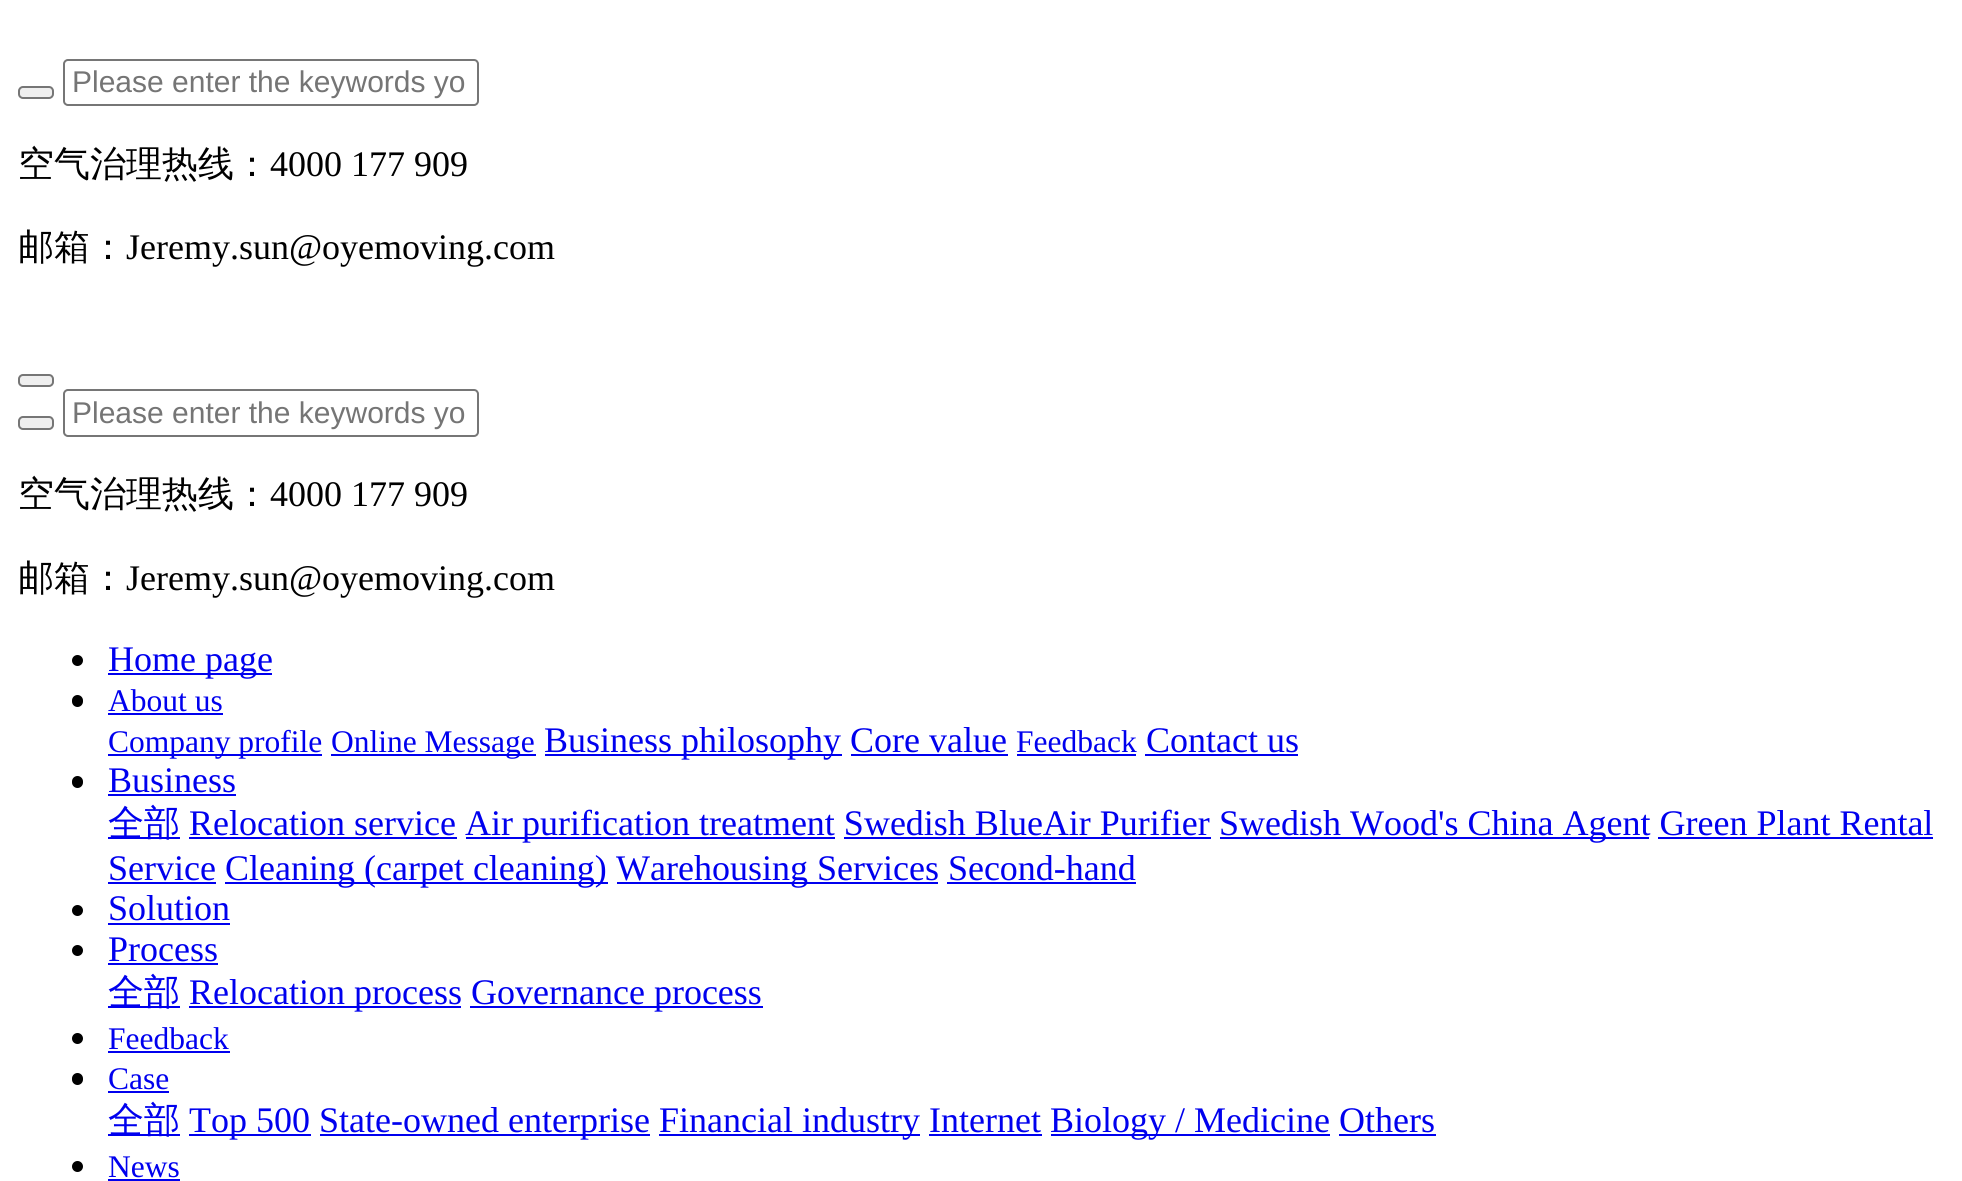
#include <cairo/cairo.h>
#include <math.h>
#include <stddef.h>


static void rounded_rect(cairo_t *cr, double x, double y, double w, double h, double r) {
  cairo_new_sub_path(cr);
  cairo_arc(cr, x + w - r, y + h - r, r, 0, M_PI / 2);
  cairo_arc(cr, x + r, y + h - r, r, M_PI / 2, M_PI);
  cairo_arc(cr, x + r, y + r, r, M_PI, 1.5 * M_PI);
  cairo_arc(cr, x + w - r, y + r, r, 1.5 * M_PI, 2 * M_PI);
  cairo_close_path(cr);
}

static void draw(cairo_t *cr) {
  cairo_set_source_rgb(cr, 1, 1, 1);
  cairo_paint(cr);
  cairo_set_source_rgb(cr, 239 / 255.0, 239 / 255.0, 239 / 255.0);
  rounded_rect(cr, 19, 87, 34, 11, 4);
  cairo_fill_preserve(cr);
  cairo_set_source_rgb(cr, 118 / 255.0, 118 / 255.0, 118 / 255.0);
  cairo_stroke(cr);
  rounded_rect(cr, 64, 60, 414, 45, 4);
  cairo_stroke(cr);
  cairo_set_source_rgb(cr, 239 / 255.0, 239 / 255.0, 239 / 255.0);
  rounded_rect(cr, 19, 375, 34, 11, 4);
  cairo_fill_preserve(cr);
  cairo_set_source_rgb(cr, 118 / 255.0, 118 / 255.0, 118 / 255.0);
  cairo_stroke(cr);
  cairo_set_source_rgb(cr, 239 / 255.0, 239 / 255.0, 239 / 255.0);
  rounded_rect(cr, 19, 417, 34, 12, 4);
  cairo_fill_preserve(cr);
  cairo_set_source_rgb(cr, 118 / 255.0, 118 / 255.0, 118 / 255.0);
  cairo_stroke(cr);
  rounded_rect(cr, 64, 390, 414, 46, 4);
  cairo_stroke(cr);
  cairo_set_source_rgb(cr, 0, 0, 0);
  cairo_arc(cr, 77.5, 660.5, 5.5, 0, 2 * M_PI);
  cairo_fill(cr);
  cairo_set_source_rgb(cr, 0, 0, 238 / 255.0);
  cairo_rectangle(cr, 108, 673, 164, 2);
  cairo_fill(cr);
  cairo_set_source_rgb(cr, 0, 0, 0);
  rounded_rect(cr, 72, 695, 11, 12, 5.5);
  cairo_fill(cr);
  cairo_set_source_rgb(cr, 0, 0, 238 / 255.0);
  cairo_rectangle(cr, 108, 713, 115, 2);
  cairo_fill(cr);
  cairo_rectangle(cr, 108, 754, 214, 2);
  cairo_fill(cr);
  cairo_rectangle(cr, 331, 754, 205, 2);
  cairo_fill(cr);
  cairo_rectangle(cr, 545, 754, 297, 2);
  cairo_fill(cr);
  cairo_rectangle(cr, 1017, 754, 119, 2);
  cairo_fill(cr);
  cairo_rectangle(cr, 1145, 754, 153, 2);
  cairo_fill(cr);
  cairo_rectangle(cr, 851, 754, 157, 2);
  cairo_fill(cr);
  cairo_set_source_rgb(cr, 0, 0, 0);
  rounded_rect(cr, 72, 776, 11, 12, 5.5);
  cairo_fill(cr);
  cairo_set_source_rgb(cr, 0, 0, 238 / 255.0);
  cairo_rectangle(cr, 108, 794, 128, 2);
  cairo_fill(cr);
  cairo_rectangle(cr, 108, 837, 72, 2);
  cairo_fill(cr);
  cairo_rectangle(cr, 189, 837, 268, 2);
  cairo_fill(cr);
  cairo_rectangle(cr, 466, 837, 369, 2);
  cairo_fill(cr);
  cairo_rectangle(cr, 1220, 837, 429, 2);
  cairo_fill(cr);
  cairo_rectangle(cr, 844, 837, 367, 2);
  cairo_fill(cr);
  cairo_rectangle(cr, 1658, 837, 275, 2);
  cairo_fill(cr);
  cairo_rectangle(cr, 108, 882, 108, 2);
  cairo_fill(cr);
  cairo_rectangle(cr, 225, 882, 383, 2);
  cairo_fill(cr);
  cairo_rectangle(cr, 617, 882, 321, 2);
  cairo_fill(cr);
  cairo_rectangle(cr, 947, 882, 189, 2);
  cairo_fill(cr);
  cairo_set_source_rgb(cr, 0, 0, 0);
  cairo_arc(cr, 77.5, 910.5, 5.5, 0, 2 * M_PI);
  cairo_fill(cr);
  cairo_set_source_rgb(cr, 0, 0, 238 / 255.0);
  cairo_rectangle(cr, 108, 923, 122, 2);
  cairo_fill(cr);
  cairo_set_source_rgb(cr, 0, 0, 0);
  cairo_arc(cr, 77.5, 950.5, 5.5, 0, 2 * M_PI);
  cairo_fill(cr);
  cairo_set_source_rgb(cr, 0, 0, 238 / 255.0);
  cairo_rectangle(cr, 108, 963, 110, 2);
  cairo_fill(cr);
  cairo_rectangle(cr, 108, 1006, 72, 2);
  cairo_fill(cr);
  cairo_rectangle(cr, 189, 1006, 272, 2);
  cairo_fill(cr);
  cairo_rectangle(cr, 470, 1006, 293, 2);
  cairo_fill(cr);
  cairo_set_source_rgb(cr, 0, 0, 0);
  cairo_arc(cr, 77.5, 1038.5, 5.5, 0, 2 * M_PI);
  cairo_fill(cr);
  cairo_set_source_rgb(cr, 0, 0, 238 / 255.0);
  cairo_rectangle(cr, 108, 1051, 122, 2);
  cairo_fill(cr);
  cairo_set_source_rgb(cr, 0, 0, 0);
  rounded_rect(cr, 72, 1073, 11, 12, 5.5);
  cairo_fill(cr);
  cairo_set_source_rgb(cr, 0, 0, 238 / 255.0);
  cairo_rectangle(cr, 108, 1091, 61, 2);
  cairo_fill(cr);
  cairo_rectangle(cr, 108, 1134, 72, 2);
  cairo_fill(cr);
  cairo_rectangle(cr, 189, 1134, 122, 2);
  cairo_fill(cr);
  cairo_rectangle(cr, 320, 1134, 330, 2);
  cairo_fill(cr);
  cairo_rectangle(cr, 659, 1134, 261, 2);
  cairo_fill(cr);
  cairo_rectangle(cr, 1051, 1134, 279, 2);
  cairo_fill(cr);
  cairo_rectangle(cr, 929, 1134, 113, 2);
  cairo_fill(cr);
  cairo_rectangle(cr, 1339, 1134, 97, 2);
  cairo_fill(cr);
  cairo_set_source_rgb(cr, 0, 0, 0);
  cairo_arc(cr, 77.5, 1166.5, 5.5, 0, 2 * M_PI);
  cairo_fill(cr);
  cairo_set_source_rgb(cr, 0, 0, 238 / 255.0);
  cairo_rectangle(cr, 108, 1179, 72, 2);
  cairo_fill(cr);
  cairo_select_font_face(cr, "Liberation Sans", CAIRO_FONT_SLANT_NORMAL, CAIRO_FONT_WEIGHT_NORMAL);
  cairo_set_font_size(cr, 30);
  cairo_set_source_rgb(cr, 117 / 255.0, 117 / 255.0, 117 / 255.0);
  cairo_move_to(cr, 72, 92);
  cairo_show_text(cr, "Please enter the keywords yo");
  cairo_select_font_face(cr, "WenQuanYi Zen Hei Medium", CAIRO_FONT_SLANT_NORMAL, CAIRO_FONT_WEIGHT_NORMAL);
  cairo_set_font_size(cr, 36);
  cairo_set_source_rgb(cr, 0, 0, 0);
  cairo_move_to(cr, 18, 176);
  cairo_show_text(cr, "空气治理热线：");
  cairo_select_font_face(cr, "Liberation Serif", CAIRO_FONT_SLANT_NORMAL, CAIRO_FONT_WEIGHT_NORMAL);
  cairo_move_to(cr, 270, 176);
  cairo_show_text(cr, "4000 177 909");
  cairo_select_font_face(cr, "WenQuanYi Zen Hei Medium", CAIRO_FONT_SLANT_NORMAL, CAIRO_FONT_WEIGHT_NORMAL);
  cairo_move_to(cr, 18, 259);
  cairo_show_text(cr, "邮箱：");
  cairo_select_font_face(cr, "Liberation Serif", CAIRO_FONT_SLANT_NORMAL, CAIRO_FONT_WEIGHT_NORMAL);
  cairo_move_to(cr, 126, 259);
  cairo_show_text(cr, "Jeremy.sun@oyemoving.com");
  cairo_select_font_face(cr, "Liberation Sans", CAIRO_FONT_SLANT_NORMAL, CAIRO_FONT_WEIGHT_NORMAL);
  cairo_set_font_size(cr, 30);
  cairo_set_source_rgb(cr, 117 / 255.0, 117 / 255.0, 117 / 255.0);
  cairo_move_to(cr, 72, 423);
  cairo_show_text(cr, "Please enter the keywords yo");
  cairo_select_font_face(cr, "WenQuanYi Zen Hei Medium", CAIRO_FONT_SLANT_NORMAL, CAIRO_FONT_WEIGHT_NORMAL);
  cairo_set_font_size(cr, 36);
  cairo_set_source_rgb(cr, 0, 0, 0);
  cairo_move_to(cr, 18, 506);
  cairo_show_text(cr, "空气治理热线：");
  cairo_select_font_face(cr, "Liberation Serif", CAIRO_FONT_SLANT_NORMAL, CAIRO_FONT_WEIGHT_NORMAL);
  cairo_move_to(cr, 270, 506);
  cairo_show_text(cr, "4000 177 909");
  cairo_select_font_face(cr, "WenQuanYi Zen Hei Medium", CAIRO_FONT_SLANT_NORMAL, CAIRO_FONT_WEIGHT_NORMAL);
  cairo_move_to(cr, 18, 590);
  cairo_show_text(cr, "邮箱：");
  cairo_select_font_face(cr, "Liberation Serif", CAIRO_FONT_SLANT_NORMAL, CAIRO_FONT_WEIGHT_NORMAL);
  cairo_move_to(cr, 126, 590);
  cairo_show_text(cr, "Jeremy.sun@oyemoving.com");
  cairo_set_source_rgb(cr, 0, 0, 238 / 255.0);
  cairo_move_to(cr, 108, 671);
  cairo_show_text(cr, "Home page");
  cairo_set_font_size(cr, 31.5);
  cairo_move_to(cr, 108, 711);
  cairo_show_text(cr, "About us");
  cairo_move_to(cr, 108, 752);
  cairo_show_text(cr, "Company profile");
  cairo_move_to(cr, 331, 752);
  cairo_show_text(cr, "Online Message");
  cairo_set_font_size(cr, 36);
  cairo_move_to(cr, 544, 752);
  cairo_show_text(cr, "Business philosophy Core value");
  cairo_set_font_size(cr, 31.5);
  cairo_move_to(cr, 1016, 752);
  cairo_show_text(cr, "Feedback");
  cairo_set_font_size(cr, 36);
  cairo_move_to(cr, 1146, 752);
  cairo_show_text(cr, "Contact us");
  cairo_move_to(cr, 108, 792);
  cairo_show_text(cr, "Business");
  cairo_select_font_face(cr, "WenQuanYi Zen Hei Medium", CAIRO_FONT_SLANT_NORMAL, CAIRO_FONT_WEIGHT_NORMAL);
  cairo_move_to(cr, 108, 835);
  cairo_show_text(cr, "全部");
  cairo_select_font_face(cr, "Liberation Serif", CAIRO_FONT_SLANT_NORMAL, CAIRO_FONT_WEIGHT_NORMAL);
  cairo_move_to(cr, 189, 835);
  cairo_show_text(cr, "Relocation service");
  cairo_move_to(cr, 465, 835);
  cairo_show_text(cr, "Air purification treatment Swedish BlueAir Purifier");
  cairo_move_to(cr, 1219, 835);
  cairo_show_text(cr, "Swedish Wood's China Agent Green Plant Rental");
  cairo_move_to(cr, 108, 880);
  cairo_show_text(cr, "Service");
  cairo_move_to(cr, 225, 880);
  cairo_show_text(cr, "Cleaning (carpet cleaning)");
  cairo_move_to(cr, 616, 880);
  cairo_show_text(cr, "Warehousing Services Second-hand");
  cairo_move_to(cr, 108, 920);
  cairo_show_text(cr, "Solution");
  cairo_move_to(cr, 108, 961);
  cairo_show_text(cr, "Process");
  cairo_select_font_face(cr, "WenQuanYi Zen Hei Medium", CAIRO_FONT_SLANT_NORMAL, CAIRO_FONT_WEIGHT_NORMAL);
  cairo_move_to(cr, 108, 1004);
  cairo_show_text(cr, "全部");
  cairo_select_font_face(cr, "Liberation Serif", CAIRO_FONT_SLANT_NORMAL, CAIRO_FONT_WEIGHT_NORMAL);
  cairo_move_to(cr, 189, 1004);
  cairo_show_text(cr, "Relocation process");
  cairo_move_to(cr, 471, 1004);
  cairo_show_text(cr, "Governance process");
  cairo_set_font_size(cr, 31.5);
  cairo_move_to(cr, 108, 1049);
  cairo_show_text(cr, "Feedback");
  cairo_move_to(cr, 108, 1089);
  cairo_show_text(cr, "Case");
  cairo_select_font_face(cr, "WenQuanYi Zen Hei Medium", CAIRO_FONT_SLANT_NORMAL, CAIRO_FONT_WEIGHT_NORMAL);
  cairo_set_font_size(cr, 36);
  cairo_move_to(cr, 108, 1132);
  cairo_show_text(cr, "全部");
  cairo_select_font_face(cr, "Liberation Serif", CAIRO_FONT_SLANT_NORMAL, CAIRO_FONT_WEIGHT_NORMAL);
  cairo_move_to(cr, 189, 1132);
  cairo_show_text(cr, "Top 500");
  cairo_move_to(cr, 319, 1132);
  cairo_show_text(cr, "State-owned enterprise");
  cairo_move_to(cr, 659, 1132);
  cairo_show_text(cr, "Financial industry Internet");
  cairo_move_to(cr, 1050, 1132);
  cairo_show_text(cr, "Biology / Medicine Others");
  cairo_set_font_size(cr, 31.5);
  cairo_move_to(cr, 108, 1177);
  cairo_show_text(cr, "News");
}

int main(void) {
  cairo_surface_t *surface = cairo_image_surface_create(CAIRO_FORMAT_RGB24, 1962, 1181);
  cairo_t *cr = cairo_create(surface);
  cairo_font_options_t *options = cairo_font_options_create();
  cairo_font_options_set_hint_metrics(options, CAIRO_HINT_METRICS_OFF);
  cairo_font_options_set_hint_style(options, CAIRO_HINT_STYLE_NONE);
  cairo_set_font_options(cr, options);
  cairo_set_miter_limit(cr, 4);
  draw(cr);
  cairo_surface_write_to_png(surface, "out.png");
  cairo_font_options_destroy(options);
  cairo_destroy(cr);
  cairo_surface_destroy(surface);
  return 0;
}
